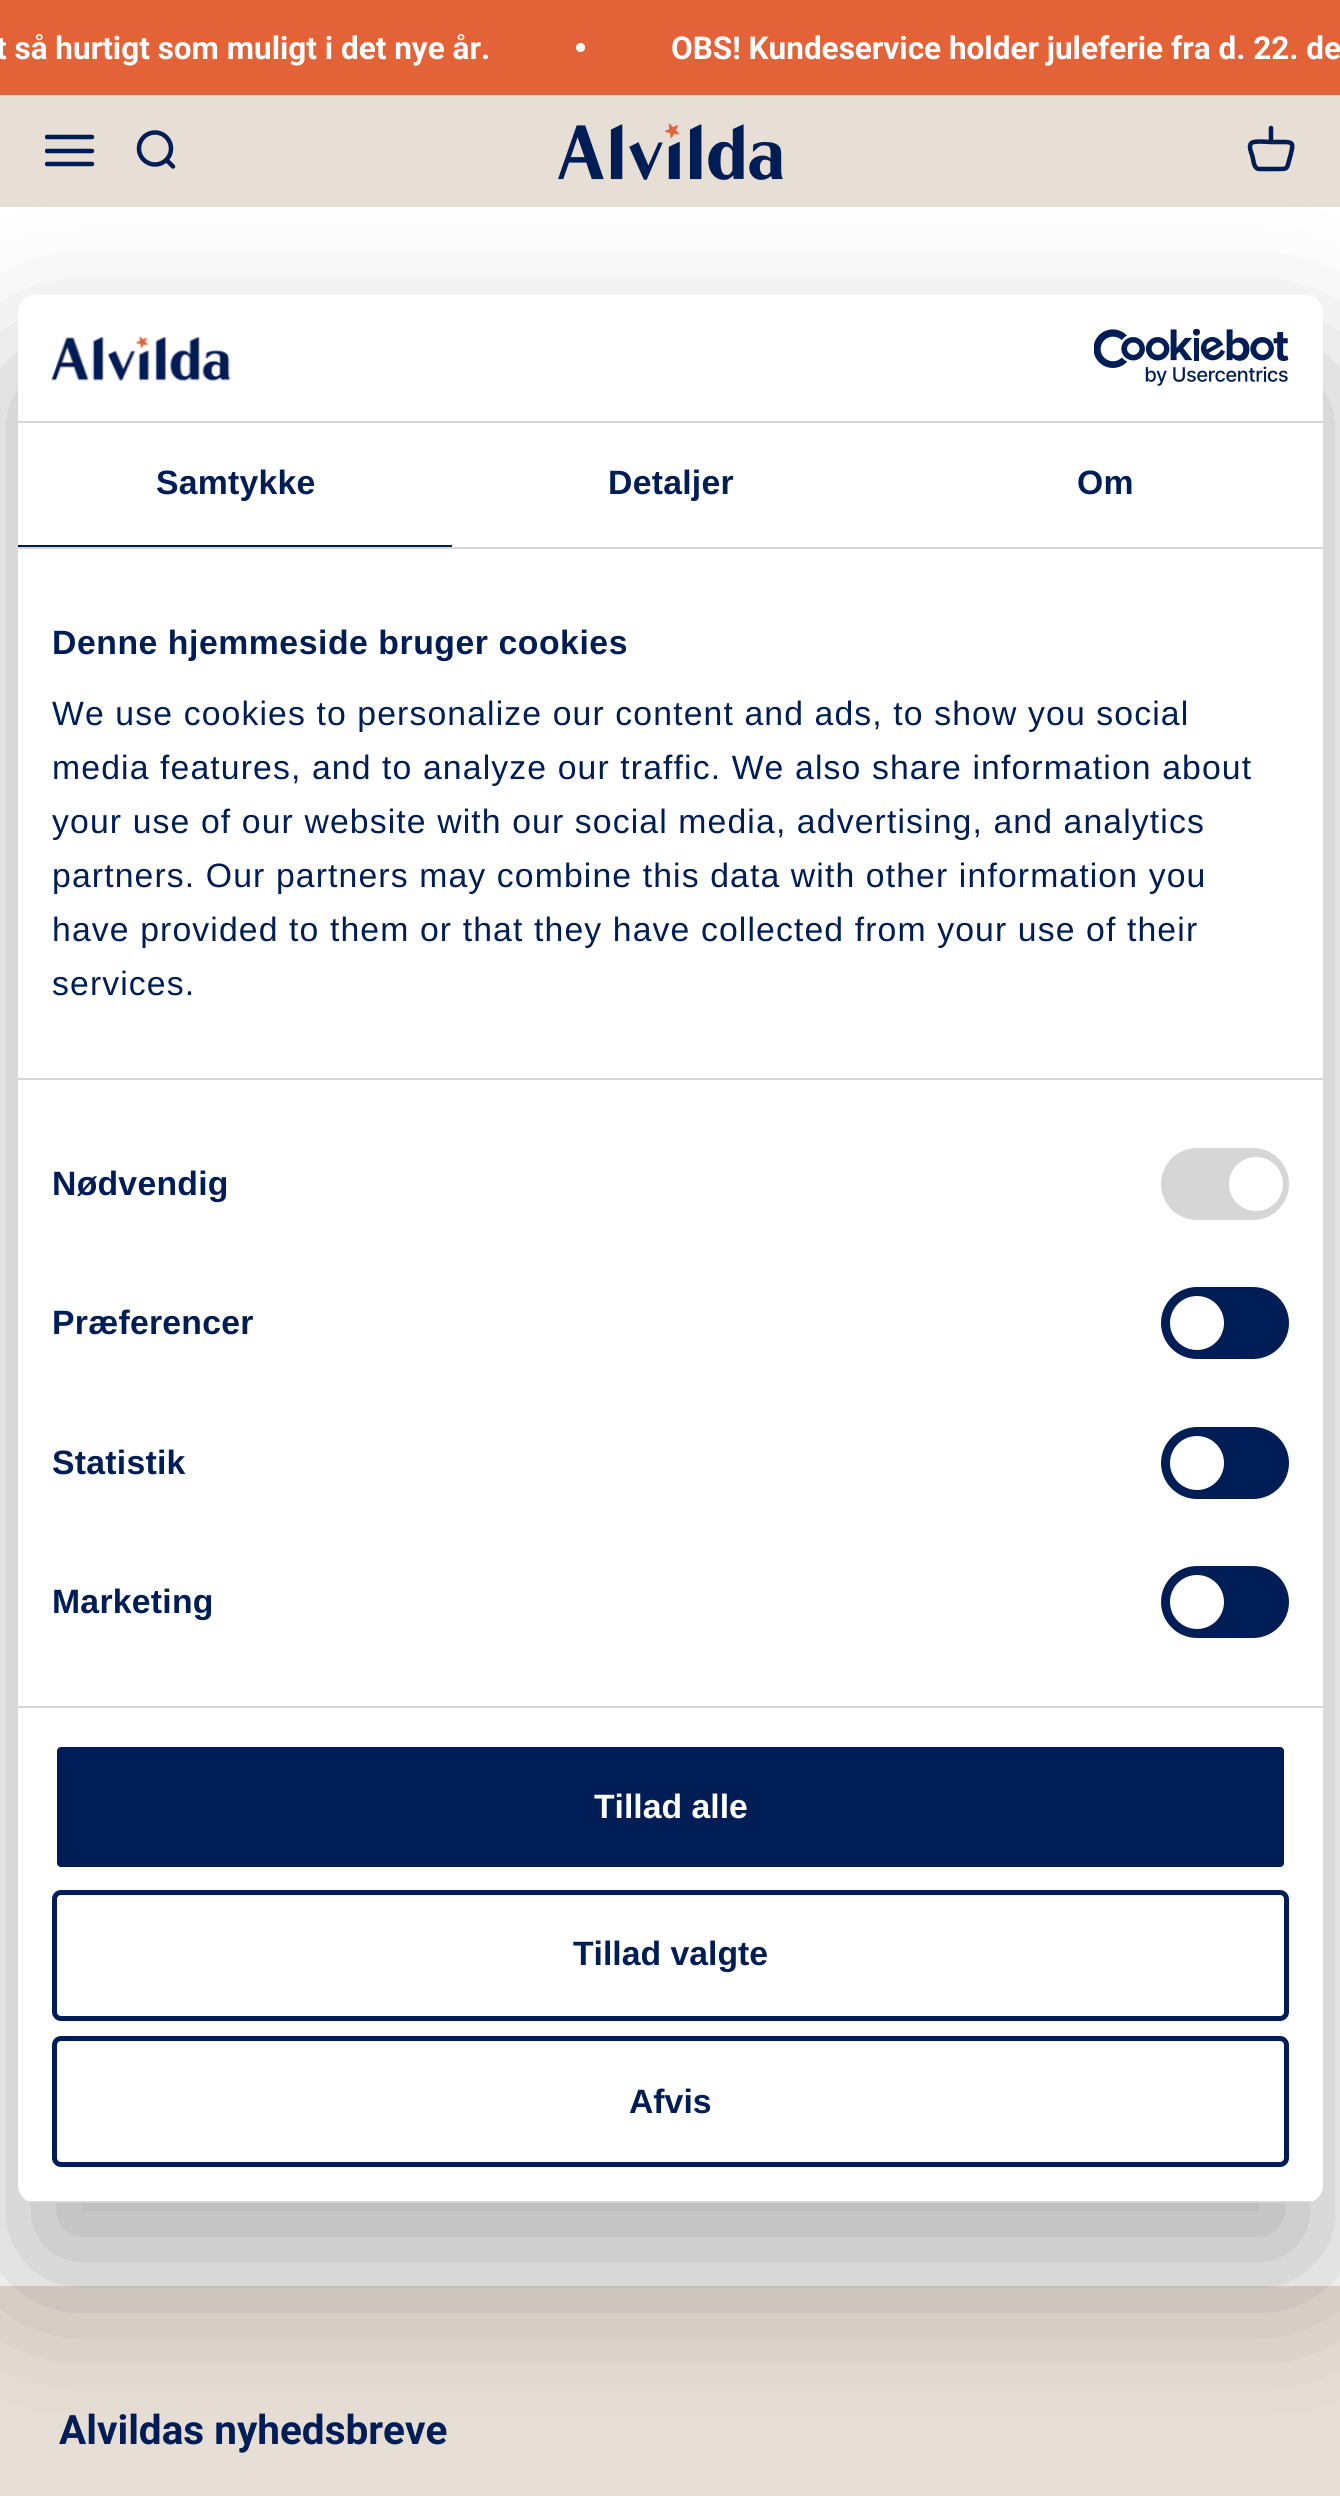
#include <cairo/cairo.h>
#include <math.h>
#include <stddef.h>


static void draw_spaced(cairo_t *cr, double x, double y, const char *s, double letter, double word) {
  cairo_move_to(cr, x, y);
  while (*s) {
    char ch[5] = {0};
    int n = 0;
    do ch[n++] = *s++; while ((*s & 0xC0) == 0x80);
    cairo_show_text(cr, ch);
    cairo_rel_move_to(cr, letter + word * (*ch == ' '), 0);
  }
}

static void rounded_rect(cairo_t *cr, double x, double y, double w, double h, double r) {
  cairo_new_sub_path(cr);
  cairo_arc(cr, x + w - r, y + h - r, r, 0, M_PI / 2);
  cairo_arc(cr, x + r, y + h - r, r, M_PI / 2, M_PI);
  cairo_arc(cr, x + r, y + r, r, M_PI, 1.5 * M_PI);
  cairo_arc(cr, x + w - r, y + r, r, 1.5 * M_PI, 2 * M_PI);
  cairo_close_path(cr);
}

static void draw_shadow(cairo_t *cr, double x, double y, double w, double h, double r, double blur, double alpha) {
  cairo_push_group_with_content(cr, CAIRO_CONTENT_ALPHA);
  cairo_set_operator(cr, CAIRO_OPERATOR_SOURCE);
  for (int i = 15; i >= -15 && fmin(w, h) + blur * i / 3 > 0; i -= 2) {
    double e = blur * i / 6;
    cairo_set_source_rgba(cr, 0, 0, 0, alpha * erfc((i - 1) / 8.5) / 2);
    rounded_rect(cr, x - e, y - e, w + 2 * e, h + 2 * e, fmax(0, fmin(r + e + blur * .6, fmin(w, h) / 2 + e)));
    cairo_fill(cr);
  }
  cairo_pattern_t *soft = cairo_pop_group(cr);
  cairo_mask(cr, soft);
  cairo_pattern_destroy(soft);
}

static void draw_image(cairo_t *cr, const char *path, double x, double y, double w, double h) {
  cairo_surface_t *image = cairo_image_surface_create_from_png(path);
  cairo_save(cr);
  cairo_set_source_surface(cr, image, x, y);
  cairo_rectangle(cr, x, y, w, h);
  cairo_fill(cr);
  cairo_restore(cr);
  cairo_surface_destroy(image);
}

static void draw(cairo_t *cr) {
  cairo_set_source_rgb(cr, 1, 1, 1);
  cairo_paint(cr);
  cairo_set_source_rgb(cr, 228 / 255.0, 98 / 255.0, 56 / 255.0);
  cairo_rectangle(cr, 0, 0, 1340, 95);
  cairo_fill(cr);
  cairo_set_source_rgb(cr, 1, 1, 1);
  cairo_arc(cr, 580.5, 47.5, 4.5, 0, 2 * M_PI);
  cairo_fill(cr);
  cairo_set_source_rgb(cr, 231 / 255.0, 222 / 255.0, 213 / 255.0);
  cairo_rectangle(cr, 0, 95, 1340, 112);
  cairo_fill(cr);
  cairo_save(cr);
  cairo_rectangle(cr, 45, 126, 50, 50);
  cairo_clip(cr);
  cairo_new_path(cr);
  cairo_move_to(cr, 47, 137);
  cairo_line_to(cr, 92, 137);
  cairo_move_to(cr, 47, 151);
  cairo_line_to(cr, 92, 151);
  cairo_move_to(cr, 47, 164);
  cairo_line_to(cr, 92, 164);
  cairo_set_source_rgb(cr, 0, 30 / 255.0, 85 / 255.0);
  cairo_set_line_width(cr, 4.5);
  cairo_set_line_cap(cr, CAIRO_LINE_CAP_ROUND);
  cairo_stroke(cr);
  cairo_restore(cr);
  cairo_arc(cr, 155, 148.5, 16, 0, 2 * M_PI);
  cairo_set_source_rgb(cr, 0, 30 / 255.0, 85 / 255.0);
  cairo_set_line_width(cr, 4.5);
  cairo_stroke(cr);
  cairo_new_path(cr);
  cairo_move_to(cr, 166.5, 160);
  cairo_line_to(cr, 173, 166.5);
  cairo_set_line_cap(cr, CAIRO_LINE_CAP_ROUND);
  cairo_set_line_join(cr, CAIRO_LINE_JOIN_ROUND);
  cairo_stroke(cr);
  draw_image(cr, "images/1.png", 558, 123, 225, 57);
  cairo_new_path(cr);
  cairo_move_to(cr, 1271, 142);
  cairo_curve_to(cr, 1267.5, 142, 1254.5, 140.5, 1251.5, 143);
  cairo_curve_to(cr, 1248, 146, 1251.5, 153, 1252.5, 156.5);
  cairo_curve_to(cr, 1253.5, 160, 1253.5, 168.5, 1259, 169);
  cairo_line_to(cr, 1279.5, 169);
  cairo_curve_to(cr, 1286, 169, 1287, 169, 1288.5, 162.5);
  cairo_line_to(cr, 1291, 153.5);
  cairo_curve_to(cr, 1292.5, 146, 1294.5, 142, 1285, 142);
  cairo_close_path(cr);
  cairo_move_to(cr, 1271, 142);
  cairo_line_to(cr, 1271, 128);
  cairo_stroke(cr);
  cairo_set_source_rgb(cr, 231 / 255.0, 222 / 255.0, 213 / 255.0);
  cairo_rectangle(cr, 0, 2286, 1340, 210);
  cairo_fill(cr);
  cairo_set_source_rgb(cr, 0, 0, 0);
  draw_shadow(cr, 18, 367, 1305, 1908, 18, 76.5, 0.3);
  cairo_set_source_rgb(cr, 1, 1, 1);
  rounded_rect(cr, 18, 295, 1305, 1908, 18);
  cairo_fill(cr);
  cairo_set_source_rgb(cr, 214 / 255.0, 214 / 255.0, 214 / 255.0);
  cairo_rectangle(cr, 18, 421, 1305, 2);
  cairo_fill(cr);
  draw_image(cr, "images/2.png", 51, 336, 180, 46);
  draw_image(cr, "images/3.png", 1094, 329, 195, 57);
  cairo_rectangle(cr, 18, 547, 1305, 2);
  cairo_fill(cr);
  cairo_set_source_rgb(cr, 0, 30 / 255.0, 85 / 255.0);
  cairo_rectangle(cr, 18, 545, 434, 2);
  cairo_fill(cr);
  cairo_set_source_rgb(cr, 214 / 255.0, 214 / 255.0, 214 / 255.0);
  cairo_rectangle(cr, 18, 1078, 1305, 2);
  cairo_fill(cr);
  cairo_rectangle(cr, 18, 1706, 1305, 2);
  cairo_fill(cr);
  rounded_rect(cr, 1161, 1148, 128, 72, 36);
  cairo_fill(cr);
  cairo_set_source_rgb(cr, 1, 1, 1);
  cairo_arc(cr, 1256, 1184, 27, 0, 2 * M_PI);
  cairo_fill(cr);
  cairo_set_source_rgb(cr, 0, 30 / 255.0, 85 / 255.0);
  rounded_rect(cr, 1161, 1287, 128, 72, 36);
  cairo_fill(cr);
  cairo_set_source_rgb(cr, 1, 1, 1);
  cairo_arc(cr, 1197, 1323, 27, 0, 2 * M_PI);
  cairo_fill(cr);
  cairo_set_source_rgb(cr, 0, 30 / 255.0, 85 / 255.0);
  rounded_rect(cr, 1161, 1427, 128, 72, 36);
  cairo_fill(cr);
  cairo_set_source_rgb(cr, 1, 1, 1);
  cairo_arc(cr, 1197, 1463, 27, 0, 2 * M_PI);
  cairo_fill(cr);
  cairo_set_source_rgb(cr, 0, 30 / 255.0, 85 / 255.0);
  rounded_rect(cr, 1161, 1566, 128, 72, 36);
  cairo_fill(cr);
  cairo_set_source_rgb(cr, 1, 1, 1);
  cairo_arc(cr, 1197, 1602, 27, 0, 2 * M_PI);
  cairo_fill(cr);
  cairo_save(cr);
  rounded_rect(cr, 18, 295, 1305, 1908, 18);
  cairo_clip(cr);
  cairo_set_source_rgb(cr, 214 / 255.0, 214 / 255.0, 214 / 255.0);
  cairo_rectangle(cr, 28, 2201, 1285, 2);
  cairo_fill(cr);
  cairo_restore(cr);
  cairo_set_source_rgb(cr, 0, 30 / 255.0, 85 / 255.0);
  rounded_rect(cr, 54.5, 1744.5, 1232, 125, 6.5);
  cairo_fill_preserve(cr);
  cairo_set_source_rgb(cr, 1, 1, 1);
  cairo_set_line_width(cr, 5);
  cairo_set_line_cap(cr, CAIRO_LINE_CAP_BUTT);
  cairo_set_line_join(cr, CAIRO_LINE_JOIN_MITER);
  cairo_stroke(cr);
  rounded_rect(cr, 54.5, 1892.5, 1232, 126, 6.5);
  cairo_set_source_rgb(cr, 0, 30 / 255.0, 85 / 255.0);
  cairo_stroke(cr);
  rounded_rect(cr, 54.5, 2038.5, 1232, 126, 6.5);
  cairo_stroke(cr);
  cairo_select_font_face(cr, "Roboto", CAIRO_FONT_SLANT_NORMAL, CAIRO_FONT_WEIGHT_BOLD);
  cairo_set_font_size(cr, 31.5);
  cairo_set_source_rgb(cr, 1, 1, 1);
  cairo_move_to(cr, -4, 59);
  cairo_show_text(cr, "t så hurtigt som muligt i det nye år.");
  cairo_move_to(cr, 671, 59);
  cairo_show_text(cr, "OBS! Kundeservice holder juleferie fra d. 22. de");
  cairo_select_font_face(cr, "Liberation Sans", CAIRO_FONT_SLANT_NORMAL, CAIRO_FONT_WEIGHT_BOLD);
  cairo_set_font_size(cr, 33.75);
  cairo_set_source_rgb(cr, 0, 30 / 255.0, 85 / 255.0);
  draw_spaced(cr, 156, 494, "Samtykke", 0.25, 0);
  draw_spaced(cr, 608, 494, "Detaljer", 0.25, 0);
  draw_spaced(cr, 1077, 494, "Om", 0.25, 0);
  draw_spaced(cr, 52, 654, "Denne hjemmeside bruger cookies", 0.55, 0);
  cairo_select_font_face(cr, "Liberation Sans", CAIRO_FONT_SLANT_NORMAL, CAIRO_FONT_WEIGHT_NORMAL);
  draw_spaced(cr, 52, 725, "We use cookies to personalize our content and ads, to show you social", 1.12, 0);
  draw_spaced(cr, 52, 779, "media features, and to analyze our traffic. We also share information about", 1.12, 0);
  draw_spaced(cr, 52, 833, "your use of our website with our social media, advertising, and analytics", 1.12, 0);
  draw_spaced(cr, 52, 887, "partners. Our partners may combine this data with other information you", 1.12, 0);
  draw_spaced(cr, 52, 941, "have provided to them or that they have collected from your use of their", 1.12, 0);
  draw_spaced(cr, 52, 995, "services.", 1.12, 0);
  cairo_select_font_face(cr, "Liberation Sans", CAIRO_FONT_SLANT_NORMAL, CAIRO_FONT_WEIGHT_BOLD);
  draw_spaced(cr, 52, 1195, "Nødvendig", 0.25, 0);
  draw_spaced(cr, 52, 1334, "Præferencer", 0.25, 0);
  draw_spaced(cr, 52, 1474, "Statistik", 0.25, 0);
  draw_spaced(cr, 52, 1613, "Marketing", 0.25, 0);
  cairo_set_source_rgb(cr, 1, 1, 1);
  cairo_move_to(cr, 594, 1818);
  cairo_show_text(cr, "Tillad alle");
  cairo_set_source_rgb(cr, 0, 30 / 255.0, 85 / 255.0);
  cairo_move_to(cr, 573, 1965);
  cairo_show_text(cr, "Tillad valgte");
  cairo_move_to(cr, 629, 2113);
  cairo_show_text(cr, "Afvis");
  cairo_select_font_face(cr, "Roboto", CAIRO_FONT_SLANT_NORMAL, CAIRO_FONT_WEIGHT_BOLD);
  cairo_set_font_size(cr, 40.5);
  cairo_move_to(cr, 59, 2444);
  cairo_show_text(cr, "Alvildas nyhedsbreve");
}

int main(void) {
  cairo_surface_t *surface = cairo_image_surface_create(CAIRO_FORMAT_RGB24, 1340, 2496);
  cairo_t *cr = cairo_create(surface);
  cairo_font_options_t *options = cairo_font_options_create();
  cairo_font_options_set_hint_metrics(options, CAIRO_HINT_METRICS_OFF);
  cairo_font_options_set_hint_style(options, CAIRO_HINT_STYLE_NONE);
  cairo_set_font_options(cr, options);
  cairo_set_miter_limit(cr, 4);
  draw(cr);
  cairo_surface_write_to_png(surface, "out.png");
  cairo_font_options_destroy(options);
  cairo_destroy(cr);
  cairo_surface_destroy(surface);
  return 0;
}
